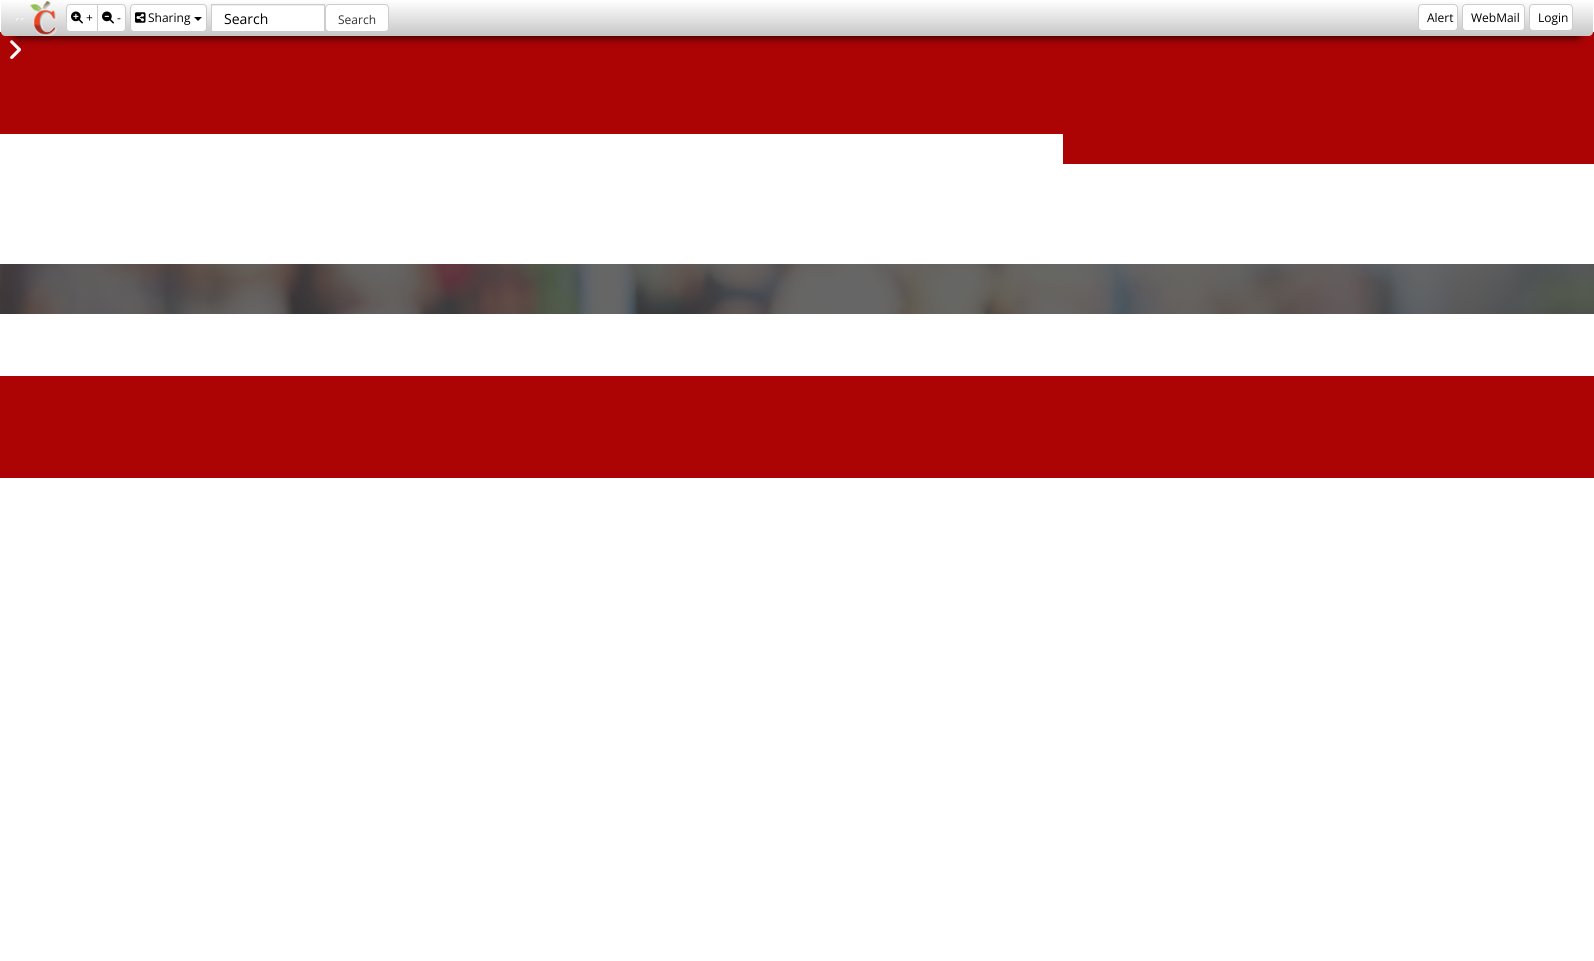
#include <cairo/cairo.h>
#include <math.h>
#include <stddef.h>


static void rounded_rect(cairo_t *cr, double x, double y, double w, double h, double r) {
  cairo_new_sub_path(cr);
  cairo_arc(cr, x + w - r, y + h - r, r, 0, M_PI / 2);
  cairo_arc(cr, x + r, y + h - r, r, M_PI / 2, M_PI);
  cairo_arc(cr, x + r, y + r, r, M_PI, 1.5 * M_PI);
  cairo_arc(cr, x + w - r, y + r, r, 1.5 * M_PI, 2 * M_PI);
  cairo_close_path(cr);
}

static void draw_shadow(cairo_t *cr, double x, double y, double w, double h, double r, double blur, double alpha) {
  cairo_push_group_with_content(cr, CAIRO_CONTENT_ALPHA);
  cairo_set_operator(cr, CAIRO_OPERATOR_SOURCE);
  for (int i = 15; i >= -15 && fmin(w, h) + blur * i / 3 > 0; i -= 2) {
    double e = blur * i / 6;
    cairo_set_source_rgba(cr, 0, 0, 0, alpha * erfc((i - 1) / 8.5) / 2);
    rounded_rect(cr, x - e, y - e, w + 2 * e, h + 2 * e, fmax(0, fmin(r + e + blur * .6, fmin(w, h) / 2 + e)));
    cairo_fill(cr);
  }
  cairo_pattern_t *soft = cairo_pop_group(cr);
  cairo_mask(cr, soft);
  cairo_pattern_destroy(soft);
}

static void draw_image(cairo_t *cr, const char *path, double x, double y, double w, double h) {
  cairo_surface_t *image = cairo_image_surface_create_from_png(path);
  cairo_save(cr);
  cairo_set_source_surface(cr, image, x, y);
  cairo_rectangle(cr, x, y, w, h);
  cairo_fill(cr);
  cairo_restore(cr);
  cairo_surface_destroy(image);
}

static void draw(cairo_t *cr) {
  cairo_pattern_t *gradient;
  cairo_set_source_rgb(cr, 1, 1, 1);
  cairo_paint(cr);
  cairo_set_source_rgb(cr, 172 / 255.0, 3 / 255.0, 5 / 255.0);
  cairo_rectangle(cr, 0, 32, 1594, 132);
  cairo_fill(cr);
  draw_image(cr, "images/5.png", 10, 40, 11, 19);
  cairo_set_source_rgb(cr, 0, 0, 0);
  draw_shadow(cr, 16, 0, 1562, 36, 0, 5, 0.99);
  gradient = cairo_pattern_create_linear(797, 0, 797, 36);
  cairo_pattern_add_color_stop_rgba(gradient, 0, 1, 1, 1, 1);
  cairo_pattern_add_color_stop_rgba(gradient, 1, 198 / 255.0, 198 / 255.0, 198 / 255.0, 1);
  cairo_set_source(cr, gradient);
  cairo_pattern_destroy(gradient);
  cairo_new_path(cr);
  cairo_move_to(cr, 1, 0);
  cairo_line_to(cr, 1593, 0);
  cairo_line_to(cr, 1593, 32);
  cairo_curve_to(cr, 1593, 34, 1591, 36, 1589, 36);
  cairo_line_to(cr, 5, 36);
  cairo_curve_to(cr, 3, 36, 1, 34, 1, 32);
  cairo_close_path(cr);
  cairo_fill(cr);
  cairo_set_source_rgb(cr, 1, 1, 1);
  cairo_new_path(cr);
  cairo_move_to(cr, 20, 18);
  cairo_line_to(cr, 17, 18);
  cairo_line_to(cr, 17, 19);
  cairo_line_to(cr, 16, 19);
  cairo_line_to(cr, 16, 22);
  cairo_curve_to(cr, 16, 20, 18, 18, 20, 18);
  cairo_close_path(cr);
  cairo_fill(cr);
  cairo_new_path(cr);
  cairo_move_to(cr, 25, 18);
  cairo_line_to(cr, 22, 18);
  cairo_line_to(cr, 22, 19);
  cairo_line_to(cr, 21, 19);
  cairo_line_to(cr, 21, 22);
  cairo_curve_to(cr, 21, 20, 23, 18, 25, 18);
  cairo_close_path(cr);
  cairo_fill(cr);
  draw_image(cr, "images/1.png", 30, 1, 27, 35);
  cairo_new_path(cr);
  cairo_move_to(cr, 70, 4.5);
  cairo_line_to(cr, 97.5, 4.5);
  cairo_line_to(cr, 97.5, 31.5);
  cairo_line_to(cr, 70, 31.5);
  cairo_curve_to(cr, 68, 31.5, 66.5, 30, 66.5, 28);
  cairo_line_to(cr, 66.5, 8);
  cairo_curve_to(cr, 66.5, 6, 68, 4.5, 70, 4.5);
  cairo_close_path(cr);
  cairo_fill_preserve(cr);
  cairo_set_source_rgb(cr, 204 / 255.0, 204 / 255.0, 204 / 255.0);
  cairo_set_line_width(cr, 1);
  cairo_stroke(cr);
  draw_image(cr, "images/2.png", 71, 11, 12, 13);
  cairo_set_source_rgb(cr, 1, 1, 1);
  cairo_new_path(cr);
  cairo_move_to(cr, 97.5, 4.5);
  cairo_line_to(cr, 122, 4.5);
  cairo_curve_to(cr, 124, 4.5, 125.5, 6, 125.5, 8);
  cairo_line_to(cr, 125.5, 28);
  cairo_curve_to(cr, 125.5, 30, 124, 31.5, 122, 31.5);
  cairo_line_to(cr, 97.5, 31.5);
  cairo_close_path(cr);
  cairo_fill_preserve(cr);
  cairo_set_source_rgb(cr, 204 / 255.0, 204 / 255.0, 204 / 255.0);
  cairo_stroke(cr);
  draw_image(cr, "images/3.png", 102, 11, 12, 13);
  cairo_set_source_rgb(cr, 1, 1, 1);
  rounded_rect(cr, 130.5, 4.5, 76, 27, 3.5);
  cairo_fill_preserve(cr);
  cairo_set_source_rgb(cr, 204 / 255.0, 204 / 255.0, 204 / 255.0);
  cairo_stroke(cr);
  draw_image(cr, "images/4.png", 135, 12, 11, 11);
  cairo_set_source_rgb(cr, 0, 0, 0);
  cairo_new_path(cr);
  cairo_move_to(cr, 194, 17);
  cairo_line_to(cr, 202, 17);
  cairo_line_to(cr, 198, 21);
  cairo_close_path(cr);
  cairo_fill(cr);
  cairo_set_source_rgb(cr, 1, 1, 1);
  cairo_rectangle(cr, 212, 6, 112, 25);
  cairo_fill(cr);
  cairo_set_source_rgb(cr, 236 / 255.0, 236 / 255.0, 236 / 255.0);
  cairo_rectangle(cr, 212, 5, 112, 1);
  cairo_fill(cr);
  cairo_rectangle(cr, 211.5, 4.5, 113, 27);
  cairo_set_source_rgb(cr, 204 / 255.0, 204 / 255.0, 204 / 255.0);
  cairo_stroke(cr);
  cairo_set_source_rgb(cr, 1, 1, 1);
  rounded_rect(cr, 325.5, 4.5, 63, 27, 3.5);
  cairo_fill_preserve(cr);
  cairo_set_source_rgb(cr, 204 / 255.0, 204 / 255.0, 204 / 255.0);
  cairo_stroke(cr);
  cairo_set_source_rgb(cr, 1, 1, 1);
  rounded_rect(cr, 1418.5, 4.5, 39, 26, 3.5);
  cairo_fill_preserve(cr);
  cairo_set_source_rgb(cr, 204 / 255.0, 204 / 255.0, 204 / 255.0);
  cairo_stroke(cr);
  cairo_set_source_rgb(cr, 1, 1, 1);
  rounded_rect(cr, 1462.5, 4.5, 62, 26, 3.5);
  cairo_fill_preserve(cr);
  cairo_set_source_rgb(cr, 204 / 255.0, 204 / 255.0, 204 / 255.0);
  cairo_stroke(cr);
  cairo_set_source_rgb(cr, 1, 1, 1);
  rounded_rect(cr, 1529.5, 4.5, 43, 26, 3.5);
  cairo_fill_preserve(cr);
  cairo_set_source_rgb(cr, 204 / 255.0, 204 / 255.0, 204 / 255.0);
  cairo_stroke(cr);
  cairo_set_source_rgb(cr, 1, 1, 1);
  cairo_rectangle(cr, 0, 134, 1063, 30);
  cairo_fill(cr);
  draw_image(cr, "images/6.png", 0, 264, 1594, 50);
  cairo_set_source_rgb(cr, 172 / 255.0, 3 / 255.0, 5 / 255.0);
  cairo_rectangle(cr, 0, 376, 1594, 102);
  cairo_fill(cr);
  cairo_select_font_face(cr, "Open Sans", CAIRO_FONT_SLANT_NORMAL, CAIRO_FONT_WEIGHT_NORMAL);
  cairo_set_font_size(cr, 12);
  cairo_set_source_rgb(cr, 0, 0, 0);
  cairo_move_to(cr, 86, 22);
  cairo_show_text(cr, "+");
  cairo_move_to(cr, 117, 22);
  cairo_show_text(cr, "-");
  cairo_move_to(cr, 148, 22);
  cairo_show_text(cr, "Sharing");
  cairo_set_font_size(cr, 14);
  cairo_move_to(cr, 224, 24);
  cairo_show_text(cr, "Search");
  cairo_set_font_size(cr, 12);
  cairo_set_source_rgb(cr, 51 / 255.0, 51 / 255.0, 51 / 255.0);
  cairo_move_to(cr, 338, 24);
  cairo_show_text(cr, "Search");
  cairo_set_source_rgb(cr, 0, 0, 0);
  cairo_move_to(cr, 1427, 22);
  cairo_show_text(cr, "Alert");
  cairo_move_to(cr, 1471, 22);
  cairo_show_text(cr, "WebMail");
  cairo_move_to(cr, 1538, 22);
  cairo_show_text(cr, "Login");
}

int main(void) {
  cairo_surface_t *surface = cairo_image_surface_create(CAIRO_FORMAT_RGB24, 1594, 961);
  cairo_t *cr = cairo_create(surface);
  cairo_font_options_t *options = cairo_font_options_create();
  cairo_font_options_set_hint_metrics(options, CAIRO_HINT_METRICS_OFF);
  cairo_font_options_set_hint_style(options, CAIRO_HINT_STYLE_NONE);
  cairo_set_font_options(cr, options);
  cairo_set_miter_limit(cr, 4);
  draw(cr);
  cairo_surface_write_to_png(surface, "out.png");
  cairo_font_options_destroy(options);
  cairo_destroy(cr);
  cairo_surface_destroy(surface);
  return 0;
}
